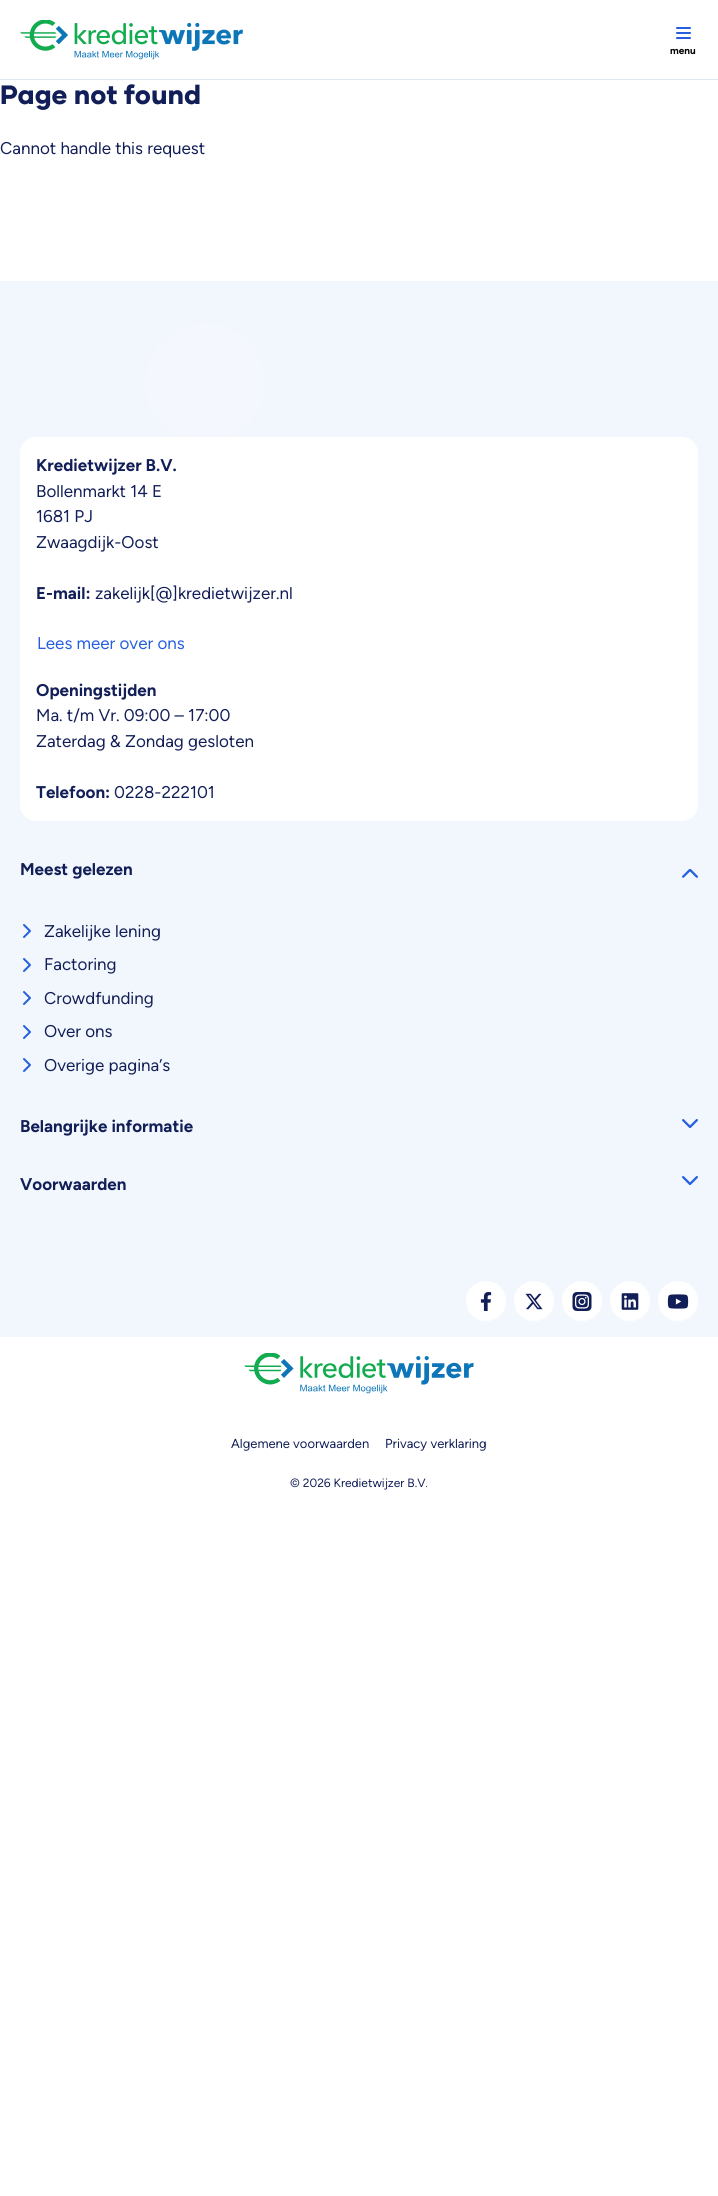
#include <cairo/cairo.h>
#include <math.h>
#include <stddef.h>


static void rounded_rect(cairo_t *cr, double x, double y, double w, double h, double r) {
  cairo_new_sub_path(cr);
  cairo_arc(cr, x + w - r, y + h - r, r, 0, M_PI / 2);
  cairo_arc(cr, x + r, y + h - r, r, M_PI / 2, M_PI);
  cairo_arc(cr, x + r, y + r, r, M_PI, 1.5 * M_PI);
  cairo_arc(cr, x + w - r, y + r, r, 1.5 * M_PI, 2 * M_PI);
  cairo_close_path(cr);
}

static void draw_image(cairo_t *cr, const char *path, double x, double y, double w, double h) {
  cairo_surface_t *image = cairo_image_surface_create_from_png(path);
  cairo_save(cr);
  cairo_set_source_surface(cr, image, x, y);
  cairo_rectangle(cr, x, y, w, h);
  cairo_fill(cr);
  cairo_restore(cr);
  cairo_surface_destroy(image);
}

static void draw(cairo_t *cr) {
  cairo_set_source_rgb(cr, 1, 1, 1);
  cairo_paint(cr);
  cairo_set_source_rgb(cr, 223 / 255.0, 232 / 255.0, 240 / 255.0);
  cairo_rectangle(cr, 0, 79, 718, 1);
  cairo_fill(cr);
  draw_image(cr, "images/1.png", 20, 20, 223, 40);
  cairo_set_source_rgb(cr, 37 / 255.0, 95 / 255.0, 223 / 255.0);
  rounded_rect(cr, 676, 37, 15, 2, 1);
  cairo_fill(cr);
  rounded_rect(cr, 676, 27, 15, 2, 1);
  cairo_fill(cr);
  rounded_rect(cr, 676, 32, 15, 2, 1);
  cairo_fill(cr);
  cairo_set_source_rgb(cr, 241 / 255.0, 247 / 255.0, 252 / 255.0);
  cairo_rectangle(cr, 0, 281, 718, 1056);
  cairo_fill(cr);
  cairo_set_source_rgb(cr, 244 / 255.0, 247 / 255.0, 253 / 255.0);
  cairo_arc(cr, 205, 383, 60, 0, 2 * M_PI);
  cairo_fill(cr);
  cairo_set_source_rgb(cr, 1, 1, 1);
  rounded_rect(cr, 20, 437, 678, 384, 16);
  cairo_fill(cr);
  draw_image(cr, "images/2.png", 682, 869, 16, 9);
  draw_image(cr, "images/3.png", 23, 924, 8, 14);
  draw_image(cr, "images/3.png", 23, 958, 8, 14);
  draw_image(cr, "images/3.png", 23, 991, 8, 14);
  draw_image(cr, "images/3.png", 23, 1025, 8, 14);
  draw_image(cr, "images/3.png", 23, 1058, 8, 14);
  draw_image(cr, "images/4.png", 682, 1119, 16, 9);
  draw_image(cr, "images/5.png", 682, 1176, 16, 10);
  cairo_arc(cr, 486, 1301, 20, 0, 2 * M_PI);
  cairo_fill(cr);
  draw_image(cr, "images/6.png", 480, 1292, 12, 19);
  cairo_arc(cr, 534, 1301, 20, 0, 2 * M_PI);
  cairo_fill(cr);
  draw_image(cr, "images/7.png", 525, 1293, 18, 17);
  cairo_arc(cr, 582, 1301, 20, 0, 2 * M_PI);
  cairo_fill(cr);
  draw_image(cr, "images/8.png", 572, 1292, 20, 19);
  cairo_arc(cr, 630, 1301, 20, 0, 2 * M_PI);
  cairo_fill(cr);
  draw_image(cr, "images/9.png", 621, 1293, 18, 17);
  cairo_arc(cr, 678, 1301, 20, 0, 2 * M_PI);
  cairo_fill(cr);
  draw_image(cr, "images/10.png", 667, 1294, 22, 15);
  draw_image(cr, "images/11.png", 244, 1353, 230, 41);
  cairo_select_font_face(cr, "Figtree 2 Light", CAIRO_FONT_SLANT_NORMAL, CAIRO_FONT_WEIGHT_NORMAL);
  cairo_set_font_size(cr, 10);
  cairo_set_source_rgb(cr, 0, 0, 0);
  cairo_move_to(cr, 670, 54);
  cairo_show_text(cr, "menu");
  cairo_select_font_face(cr, "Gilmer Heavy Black", CAIRO_FONT_SLANT_NORMAL, CAIRO_FONT_WEIGHT_NORMAL);
  cairo_set_font_size(cr, 26.5);
  cairo_set_source_rgb(cr, 18 / 255.0, 30 / 255.0, 87 / 255.0);
  cairo_move_to(cr, 0, 104);
  cairo_show_text(cr, "Page not found");
  cairo_select_font_face(cr, "Figtree Light", CAIRO_FONT_SLANT_NORMAL, CAIRO_FONT_WEIGHT_NORMAL);
  cairo_set_font_size(cr, 17);
  cairo_move_to(cr, 0, 154);
  cairo_show_text(cr, "Cannot handle this request");
  cairo_select_font_face(cr, "Figtree 2 Light", CAIRO_FONT_SLANT_NORMAL, CAIRO_FONT_WEIGHT_NORMAL);
  cairo_move_to(cr, 36, 471);
  cairo_show_text(cr, "Kredietwijzer B.V.");
  cairo_select_font_face(cr, "Figtree Light", CAIRO_FONT_SLANT_NORMAL, CAIRO_FONT_WEIGHT_NORMAL);
  cairo_move_to(cr, 36, 497);
  cairo_show_text(cr, "Bollenmarkt 14 E");
  cairo_move_to(cr, 36, 522);
  cairo_show_text(cr, "1681 PJ");
  cairo_move_to(cr, 36, 548);
  cairo_show_text(cr, "Zwaagdijk-Oost");
  cairo_select_font_face(cr, "Figtree 2 Light", CAIRO_FONT_SLANT_NORMAL, CAIRO_FONT_WEIGHT_NORMAL);
  cairo_move_to(cr, 36, 599);
  cairo_show_text(cr, "E-mail:");
  cairo_select_font_face(cr, "Figtree Light", CAIRO_FONT_SLANT_NORMAL, CAIRO_FONT_WEIGHT_NORMAL);
  cairo_move_to(cr, 95, 599);
  cairo_show_text(cr, "zakelijk[@]kredietwijzer.nl");
  cairo_set_source_rgb(cr, 37 / 255.0, 95 / 255.0, 223 / 255.0);
  cairo_move_to(cr, 37, 649);
  cairo_show_text(cr, "Lees meer over ons");
  cairo_select_font_face(cr, "Figtree 2 Light", CAIRO_FONT_SLANT_NORMAL, CAIRO_FONT_WEIGHT_NORMAL);
  cairo_set_source_rgb(cr, 18 / 255.0, 30 / 255.0, 87 / 255.0);
  cairo_move_to(cr, 36, 696);
  cairo_show_text(cr, "Openingstijden");
  cairo_select_font_face(cr, "Figtree Light", CAIRO_FONT_SLANT_NORMAL, CAIRO_FONT_WEIGHT_NORMAL);
  cairo_move_to(cr, 36, 721);
  cairo_show_text(cr, "Ma. t/m Vr. 09:00 – 17:00");
  cairo_move_to(cr, 36, 747);
  cairo_show_text(cr, "Zaterdag & Zondag gesloten");
  cairo_select_font_face(cr, "Figtree 2 Light", CAIRO_FONT_SLANT_NORMAL, CAIRO_FONT_WEIGHT_NORMAL);
  cairo_move_to(cr, 36, 798);
  cairo_show_text(cr, "Telefoon:");
  cairo_select_font_face(cr, "Figtree Light", CAIRO_FONT_SLANT_NORMAL, CAIRO_FONT_WEIGHT_NORMAL);
  cairo_move_to(cr, 114, 798);
  cairo_show_text(cr, "0228-222101");
  cairo_select_font_face(cr, "Figtree 2 Light", CAIRO_FONT_SLANT_NORMAL, CAIRO_FONT_WEIGHT_NORMAL);
  cairo_move_to(cr, 20, 875);
  cairo_show_text(cr, "Meest gelezen");
  cairo_select_font_face(cr, "Figtree Light", CAIRO_FONT_SLANT_NORMAL, CAIRO_FONT_WEIGHT_NORMAL);
  cairo_move_to(cr, 44, 937);
  cairo_show_text(cr, "Zakelijke lening");
  cairo_move_to(cr, 44, 970);
  cairo_show_text(cr, "Factoring");
  cairo_move_to(cr, 44, 1004);
  cairo_show_text(cr, "Crowdfunding");
  cairo_move_to(cr, 44, 1037);
  cairo_show_text(cr, "Over ons");
  cairo_move_to(cr, 44, 1071);
  cairo_show_text(cr, "Overige pagina’s");
  cairo_select_font_face(cr, "Figtree 2 Light", CAIRO_FONT_SLANT_NORMAL, CAIRO_FONT_WEIGHT_NORMAL);
  cairo_move_to(cr, 20, 1132);
  cairo_show_text(cr, "Belangrijke informatie");
  cairo_move_to(cr, 20, 1190);
  cairo_show_text(cr, "Voorwaarden");
  cairo_select_font_face(cr, "Figtree Light", CAIRO_FONT_SLANT_NORMAL, CAIRO_FONT_WEIGHT_NORMAL);
  cairo_set_font_size(cr, 13);
  cairo_move_to(cr, 231, 1448);
  cairo_show_text(cr, "Algemene voorwaarden");
  cairo_move_to(cr, 385, 1448);
  cairo_show_text(cr, "Privacy verklaring");
  cairo_set_font_size(cr, 12);
  cairo_move_to(cr, 290, 1487);
  cairo_show_text(cr, "© 2026 Kredietwijzer B.V.");
}

int main(void) {
  cairo_surface_t *surface = cairo_image_surface_create(CAIRO_FORMAT_RGB24, 718, 2196);
  cairo_t *cr = cairo_create(surface);
  cairo_font_options_t *options = cairo_font_options_create();
  cairo_font_options_set_hint_metrics(options, CAIRO_HINT_METRICS_OFF);
  cairo_font_options_set_hint_style(options, CAIRO_HINT_STYLE_NONE);
  cairo_set_font_options(cr, options);
  cairo_set_miter_limit(cr, 4);
  draw(cr);
  cairo_surface_write_to_png(surface, "out.png");
  cairo_font_options_destroy(options);
  cairo_destroy(cr);
  cairo_surface_destroy(surface);
  return 0;
}
